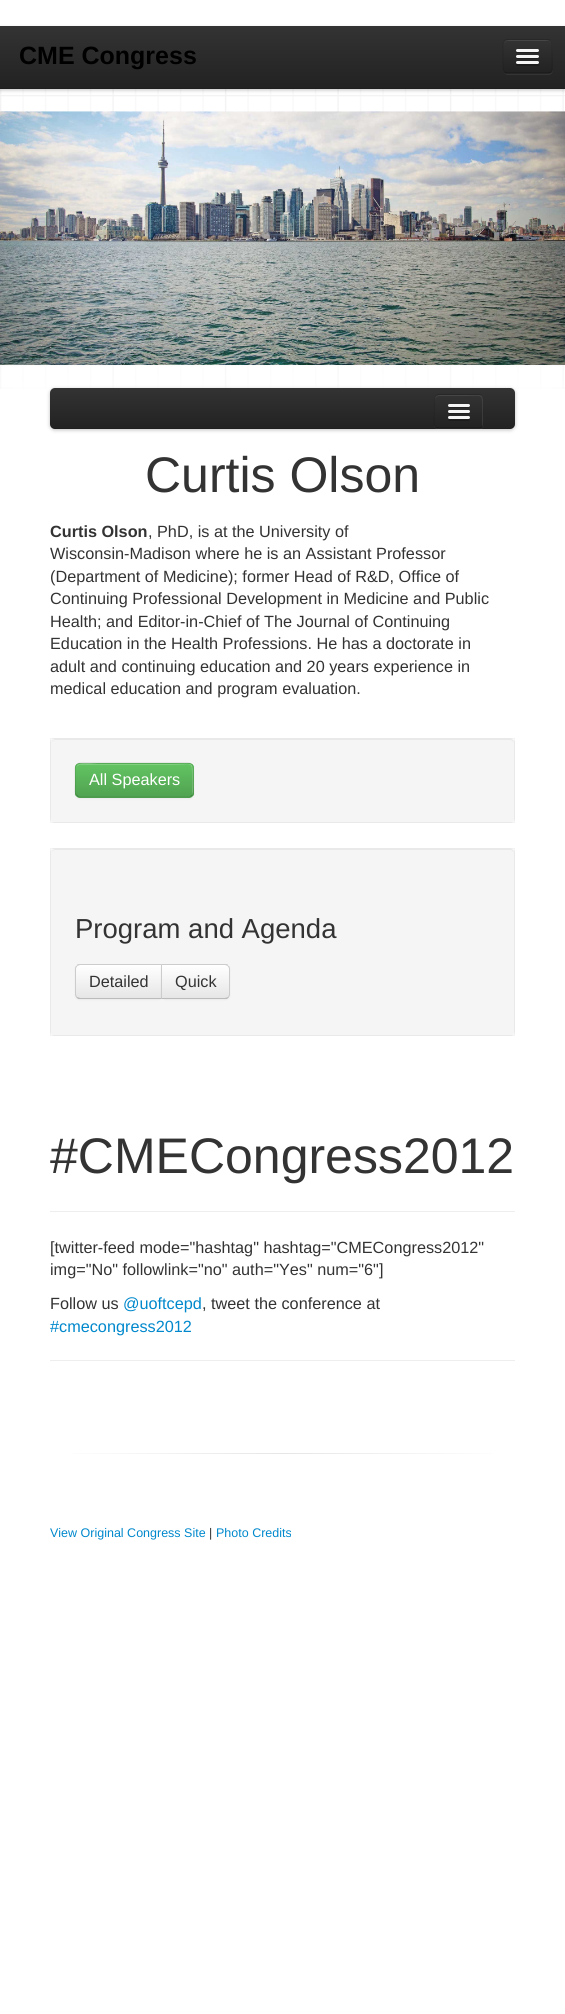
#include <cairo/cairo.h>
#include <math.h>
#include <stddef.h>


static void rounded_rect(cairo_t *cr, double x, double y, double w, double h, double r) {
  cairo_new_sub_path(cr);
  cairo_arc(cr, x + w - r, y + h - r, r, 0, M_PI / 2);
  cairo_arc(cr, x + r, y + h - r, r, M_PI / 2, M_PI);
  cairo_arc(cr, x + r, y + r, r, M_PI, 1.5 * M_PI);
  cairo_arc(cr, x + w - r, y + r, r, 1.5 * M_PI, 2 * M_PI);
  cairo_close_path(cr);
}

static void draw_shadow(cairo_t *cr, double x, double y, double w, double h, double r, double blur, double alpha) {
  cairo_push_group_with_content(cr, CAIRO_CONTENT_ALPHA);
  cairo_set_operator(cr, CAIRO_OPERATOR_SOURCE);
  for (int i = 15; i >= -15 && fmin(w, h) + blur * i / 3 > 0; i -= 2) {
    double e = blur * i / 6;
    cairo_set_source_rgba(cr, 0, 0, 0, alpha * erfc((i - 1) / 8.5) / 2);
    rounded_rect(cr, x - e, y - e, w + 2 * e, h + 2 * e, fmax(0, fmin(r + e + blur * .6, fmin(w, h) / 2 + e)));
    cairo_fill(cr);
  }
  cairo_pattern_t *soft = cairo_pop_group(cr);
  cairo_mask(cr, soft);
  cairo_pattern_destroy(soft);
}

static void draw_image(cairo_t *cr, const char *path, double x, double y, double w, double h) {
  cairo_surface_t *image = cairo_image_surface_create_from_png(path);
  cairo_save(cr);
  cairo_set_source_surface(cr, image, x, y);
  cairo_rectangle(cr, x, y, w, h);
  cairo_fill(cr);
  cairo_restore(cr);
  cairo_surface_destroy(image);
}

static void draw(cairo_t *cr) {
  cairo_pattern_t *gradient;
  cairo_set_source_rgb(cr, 1, 1, 1);
  cairo_paint(cr);
  draw_image(cr, "images/1.png", 0, 89, 565, 300);
  cairo_set_source_rgb(cr, 0, 0, 0);
  draw_shadow(cr, 0, 28, 565, 62, 0, 2, 0.25);
  gradient = cairo_pattern_create_linear(283, 26, 283, 89);
  cairo_pattern_add_color_stop_rgba(gradient, 0, 51 / 255.0, 51 / 255.0, 51 / 255.0, 1);
  cairo_pattern_add_color_stop_rgba(gradient, 1, 34 / 255.0, 34 / 255.0, 34 / 255.0, 1);
  cairo_set_source(cr, gradient);
  cairo_pattern_destroy(gradient);
  cairo_rectangle(cr, 0, 26, 565, 62);
  cairo_fill(cr);
  cairo_set_source_rgb(cr, 31 / 255.0, 31 / 255.0, 31 / 255.0);
  cairo_rectangle(cr, 0, 88, 565, 1);
  cairo_fill(cr);
  cairo_set_source_rgba(cr, 1, 1, 1, 0.07);
  cairo_new_path(cr);
  cairo_move_to(cr, 503, 71);
  cairo_curve_to(cr, 504, 73, 506, 75, 508, 75);
  cairo_line_to(cr, 548, 75);
  cairo_curve_to(cr, 551, 75, 553, 73, 553, 70);
  cairo_line_to(cr, 553, 45);
  cairo_line_to(cr, 552, 43);
  cairo_line_to(cr, 552, 69);
  cairo_curve_to(cr, 552, 72, 550, 74, 548, 74);
  cairo_line_to(cr, 508, 74);
  cairo_curve_to(cr, 506, 74, 504, 73, 503, 71);
  cairo_close_path(cr);
  cairo_fill(cr);
  cairo_set_source_rgb(cr, 44 / 255.0, 44 / 255.0, 44 / 255.0);
  rounded_rect(cr, 503, 39, 50, 35, 5);
  cairo_fill(cr);
  cairo_save(cr);
  rounded_rect(cr, 503, 39, 50, 35, 5);
  cairo_clip(cr);
  gradient = cairo_pattern_create_linear(528, 40, 528, 73);
  cairo_pattern_add_color_stop_rgba(gradient, 0, 51 / 255.0, 51 / 255.0, 51 / 255.0, 1);
  cairo_pattern_add_color_stop_rgba(gradient, 1, 34 / 255.0, 34 / 255.0, 34 / 255.0, 1);
  cairo_set_source(cr, gradient);
  cairo_pattern_destroy(gradient);
  cairo_rectangle(cr, 503, 40, 50, 33);
  cairo_fill(cr);
  cairo_restore(cr);
  cairo_set_source_rgb(cr, 71 / 255.0, 71 / 255.0, 71 / 255.0);
  cairo_new_path(cr);
  cairo_move_to(cr, 508, 41);
  cairo_line_to(cr, 548, 41);
  cairo_curve_to(cr, 550, 41, 551, 43, 551, 45);
  cairo_curve_to(cr, 551, 39, 545, 40, 540, 40);
  cairo_line_to(cr, 514, 40);
  cairo_curve_to(cr, 510, 40, 504, 39, 504, 45);
  cairo_curve_to(cr, 504, 43, 505, 41, 508, 41);
  cairo_close_path(cr);
  cairo_fill(cr);
  cairo_new_path(cr);
  cairo_move_to(cr, 550.5, 72);
  cairo_curve_to(cr, 550, 72.5, 548.5, 73, 547.5, 73);
  cairo_line_to(cr, 507.5, 73);
  cairo_curve_to(cr, 506.5, 73, 505, 72.5, 504.5, 72);
  cairo_set_source_rgba(cr, 0, 0, 0, 0.25);
  cairo_set_line_width(cr, 1.2);
  cairo_stroke(cr);
  cairo_new_path(cr);
  cairo_move_to(cr, 504.5, 72);
  cairo_curve_to(cr, 502, 69.5, 503, 59.5, 503, 56);
  cairo_line_to(cr, 503, 48);
  cairo_curve_to(cr, 503, 45, 502.5, 40.5, 506.5, 39.5);
  cairo_line_to(cr, 548.5, 39.5);
  cairo_curve_to(cr, 552.5, 40.5, 552, 45, 552, 48);
  cairo_line_to(cr, 552, 56);
  cairo_curve_to(cr, 552, 59.5, 553, 69.5, 550.5, 72);
  cairo_set_source_rgba(cr, 0, 0, 0, 0.1);
  cairo_stroke(cr);
  cairo_set_source_rgb(cr, 34 / 255.0, 34 / 255.0, 34 / 255.0);
  cairo_new_path(cr);
  cairo_move_to(cr, 516.5, 50.5);
  cairo_line_to(cr, 516, 52);
  cairo_curve_to(cr, 516.5, 54, 520, 53, 521, 53);
  cairo_line_to(cr, 534, 53);
  cairo_curve_to(cr, 535, 53, 538.5, 54, 539, 52);
  cairo_line_to(cr, 538.5, 50.5);
  cairo_curve_to(cr, 538.5, 51, 538, 51, 537.5, 51);
  cairo_line_to(cr, 517.5, 51);
  cairo_curve_to(cr, 517, 51, 516.5, 51, 516.5, 50.5);
  cairo_close_path(cr);
  cairo_fill(cr);
  cairo_set_source_rgb(cr, 245 / 255.0, 245 / 255.0, 245 / 255.0);
  rounded_rect(cr, 516, 49, 23, 3, 1.5);
  cairo_fill(cr);
  cairo_set_source_rgb(cr, 31 / 255.0, 31 / 255.0, 31 / 255.0);
  cairo_new_path(cr);
  cairo_move_to(cr, 516.5, 56.5);
  cairo_curve_to(cr, 514, 59.5, 520.5, 59, 521, 59);
  cairo_line_to(cr, 534, 59);
  cairo_curve_to(cr, 534.5, 59, 541, 59.5, 538.5, 56.5);
  cairo_curve_to(cr, 538.5, 57, 538, 57.5, 537.5, 57.5);
  cairo_line_to(cr, 517.5, 57.5);
  cairo_curve_to(cr, 517, 57.5, 516.5, 57, 516.5, 56.5);
  cairo_close_path(cr);
  cairo_fill(cr);
  cairo_set_source_rgb(cr, 245 / 255.0, 245 / 255.0, 245 / 255.0);
  rounded_rect(cr, 516, 55, 23, 3, 1.5);
  cairo_fill(cr);
  cairo_set_source_rgb(cr, 29 / 255.0, 29 / 255.0, 29 / 255.0);
  cairo_new_path(cr);
  cairo_move_to(cr, 516.5, 63.5);
  cairo_curve_to(cr, 515.5, 64, 516, 65.5, 517, 66);
  cairo_line_to(cr, 534, 66);
  cairo_curve_to(cr, 535, 66, 538.5, 67, 539, 65);
  cairo_curve_to(cr, 539, 64.5, 539, 63.5, 538.5, 63.5);
  cairo_curve_to(cr, 537.5, 64, 517.5, 64, 516.5, 63.5);
  cairo_close_path(cr);
  cairo_fill(cr);
  cairo_set_source_rgb(cr, 245 / 255.0, 245 / 255.0, 245 / 255.0);
  rounded_rect(cr, 516, 61, 23, 3, 1.5);
  cairo_fill(cr);
  draw_image(cr, "images/2.png", 0, 111, 565, 254);
  cairo_set_source_rgb(cr, 0, 0, 0);
  draw_shadow(cr, 50, 389, 465, 41, 5, 2, 0.25);
  gradient = cairo_pattern_create_linear(283, 388, 283, 429);
  cairo_pattern_add_color_stop_rgba(gradient, 0, 51 / 255.0, 51 / 255.0, 51 / 255.0, 1);
  cairo_pattern_add_color_stop_rgba(gradient, 1, 34 / 255.0, 34 / 255.0, 34 / 255.0, 1);
  cairo_set_source(cr, gradient);
  cairo_pattern_destroy(gradient);
  rounded_rect(cr, 50, 388, 465, 41, 5);
  cairo_fill(cr);
  cairo_set_source_rgba(cr, 0, 0, 0, 0.1);
  cairo_new_path(cr);
  cairo_move_to(cr, 50, 422);
  cairo_curve_to(cr, 50, 425, 51, 429, 55, 429);
  cairo_line_to(cr, 510, 429);
  cairo_curve_to(cr, 514, 429, 515, 425, 515, 422);
  cairo_curve_to(cr, 515, 425, 513, 428, 510, 428);
  cairo_line_to(cr, 55, 428);
  cairo_curve_to(cr, 52, 428, 50, 425, 50, 422);
  cairo_close_path(cr);
  cairo_fill(cr);
  cairo_set_source_rgba(cr, 1, 1, 1, 0.07);
  cairo_new_path(cr);
  cairo_move_to(cr, 434, 425);
  cairo_curve_to(cr, 434, 428, 436, 429, 438, 430);
  cairo_line_to(cr, 466, 430);
  cairo_curve_to(cr, 486, 430, 484, 432, 484, 412);
  cairo_line_to(cr, 484, 398);
  cairo_line_to(cr, 484, 425);
  cairo_line_to(cr, 482, 427);
  cairo_curve_to(cr, 480, 430, 475, 429, 472, 429);
  cairo_line_to(cr, 445, 429);
  cairo_curve_to(cr, 442, 429, 436, 430, 434, 425);
  cairo_close_path(cr);
  cairo_fill(cr);
  cairo_set_source_rgb(cr, 44 / 255.0, 44 / 255.0, 44 / 255.0);
  rounded_rect(cr, 434, 394, 50, 35, 5);
  cairo_fill(cr);
  cairo_save(cr);
  rounded_rect(cr, 434, 394, 50, 35, 5);
  cairo_clip(cr);
  gradient = cairo_pattern_create_linear(459, 395, 459, 428);
  cairo_pattern_add_color_stop_rgba(gradient, 0, 51 / 255.0, 51 / 255.0, 51 / 255.0, 1);
  cairo_pattern_add_color_stop_rgba(gradient, 1, 34 / 255.0, 34 / 255.0, 34 / 255.0, 1);
  cairo_set_source(cr, gradient);
  cairo_pattern_destroy(gradient);
  cairo_rectangle(cr, 434, 395, 50, 33);
  cairo_fill(cr);
  cairo_restore(cr);
  cairo_set_source_rgba(cr, 1, 1, 1, 0.1);
  cairo_new_path(cr);
  cairo_move_to(cr, 439, 396);
  cairo_line_to(cr, 466, 396);
  cairo_curve_to(cr, 483, 396, 482, 393, 482, 408);
  cairo_line_to(cr, 482, 427);
  cairo_curve_to(cr, 484, 425, 483, 415, 483, 412);
  cairo_curve_to(cr, 483, 392, 485, 395, 466, 395);
  cairo_line_to(cr, 446, 395);
  cairo_curve_to(cr, 441, 395, 435, 394, 435, 400);
  cairo_curve_to(cr, 435, 398, 437, 396, 439, 396);
  cairo_close_path(cr);
  cairo_fill(cr);
  cairo_new_path(cr);
  cairo_move_to(cr, 482, 427);
  cairo_curve_to(cr, 481, 427.5, 480, 428, 479, 428);
  cairo_line_to(cr, 439, 428);
  cairo_curve_to(cr, 437.5, 428, 436.5, 427.5, 435.5, 427);
  cairo_set_source_rgba(cr, 0, 0, 0, 0.25);
  cairo_stroke(cr);
  cairo_new_path(cr);
  cairo_move_to(cr, 435.5, 427);
  cairo_curve_to(cr, 433, 424.5, 434.5, 414.5, 434.5, 411);
  cairo_line_to(cr, 434.5, 403);
  cairo_curve_to(cr, 434.5, 400, 434, 395.5, 438, 394.5);
  cairo_line_to(cr, 479.5, 394.5);
  cairo_curve_to(cr, 483.5, 395.5, 483, 400, 483, 403);
  cairo_line_to(cr, 483, 411);
  cairo_curve_to(cr, 483, 414.5, 484.5, 424.5, 482, 427);
  cairo_set_source_rgba(cr, 0, 0, 0, 0.1);
  cairo_stroke(cr);
  cairo_set_source_rgb(cr, 34 / 255.0, 34 / 255.0, 34 / 255.0);
  cairo_new_path(cr);
  cairo_move_to(cr, 448, 406);
  cairo_curve_to(cr, 447.5, 408.5, 452, 408, 452.5, 408);
  cairo_line_to(cr, 465.5, 408);
  cairo_curve_to(cr, 466, 408, 471.5, 408.5, 470, 405.5);
  cairo_line_to(cr, 469, 406);
  cairo_close_path(cr);
  cairo_fill(cr);
  cairo_set_source_rgb(cr, 245 / 255.0, 245 / 255.0, 245 / 255.0);
  rounded_rect(cr, 448, 404, 22, 3, 1.5);
  cairo_fill(cr);
  cairo_set_source_rgb(cr, 31 / 255.0, 31 / 255.0, 31 / 255.0);
  cairo_new_path(cr);
  cairo_move_to(cr, 448, 412.5);
  cairo_curve_to(cr, 447.5, 414.5, 451.5, 414, 452.5, 414);
  cairo_line_to(cr, 465.5, 414);
  cairo_curve_to(cr, 466, 414, 471, 414.5, 470, 412);
  cairo_line_to(cr, 469, 412.5);
  cairo_curve_to(cr, 467, 412.5, 448.5, 412.5, 448, 412.5);
  cairo_close_path(cr);
  cairo_fill(cr);
  cairo_set_source_rgb(cr, 245 / 255.0, 245 / 255.0, 245 / 255.0);
  rounded_rect(cr, 448, 410, 22, 3, 1.5);
  cairo_fill(cr);
  cairo_set_source_rgb(cr, 29 / 255.0, 29 / 255.0, 29 / 255.0);
  cairo_new_path(cr);
  cairo_move_to(cr, 448.5, 418.5);
  cairo_curve_to(cr, 446.5, 421.5, 452, 421, 452.5, 421);
  cairo_line_to(cr, 459, 421);
  cairo_curve_to(cr, 461, 421, 469, 421.5, 469.5, 420.5);
  cairo_curve_to(cr, 470, 420, 470, 419, 469.5, 418.5);
  cairo_curve_to(cr, 469, 419, 449.5, 419, 448.5, 418.5);
  cairo_close_path(cr);
  cairo_fill(cr);
  cairo_set_source_rgb(cr, 245 / 255.0, 245 / 255.0, 245 / 255.0);
  rounded_rect(cr, 448, 416, 22, 3, 1.5);
  cairo_fill(cr);
  rounded_rect(cr, 50, 738, 465, 85, 5);
  cairo_fill(cr);
  cairo_set_source_rgb(cr, 233 / 255.0, 233 / 255.0, 233 / 255.0);
  cairo_new_path(cr);
  cairo_move_to(cr, 55, 740);
  cairo_line_to(cr, 510, 740);
  cairo_curve_to(cr, 512, 740, 514, 742, 514, 744);
  cairo_curve_to(cr, 514, 741, 513, 739, 510, 739);
  cairo_line_to(cr, 55, 739);
  cairo_line_to(cr, 53, 740);
  cairo_line_to(cr, 52, 741);
  cairo_line_to(cr, 51, 744);
  cairo_curve_to(cr, 51, 742, 53, 740, 55, 740);
  cairo_close_path(cr);
  cairo_fill(cr);
  cairo_rectangle(cr, 50.5, 738.5, 464, 84);
  cairo_set_source_rgba(cr, 0, 0, 0, 0.05);
  cairo_set_line_width(cr, 1);
  cairo_stroke(cr);
  cairo_set_source_rgb(cr, 0, 0, 0);
  draw_shadow(cr, 75, 764, 119, 35, 5, 1, 0.05);
  cairo_set_source_rgb(cr, 91 / 255.0, 183 / 255.0, 91 / 255.0);
  rounded_rect(cr, 75, 763, 119, 35, 5);
  cairo_fill(cr);
  cairo_save(cr);
  rounded_rect(cr, 75, 763, 119, 35, 5);
  cairo_clip(cr);
  gradient = cairo_pattern_create_linear(134, 764, 134, 796);
  cairo_pattern_add_color_stop_rgba(gradient, 0, 98 / 255.0, 196 / 255.0, 98 / 255.0, 1);
  cairo_pattern_add_color_stop_rgba(gradient, 1, 81 / 255.0, 163 / 255.0, 81 / 255.0, 1);
  cairo_set_source(cr, gradient);
  cairo_pattern_destroy(gradient);
  cairo_rectangle(cr, 75, 764, 119, 32);
  cairo_fill(cr);
  cairo_restore(cr);
  cairo_set_source_rgba(cr, 1, 1, 1, 0.2);
  cairo_new_path(cr);
  cairo_move_to(cr, 80, 765);
  cairo_line_to(cr, 171, 765);
  cairo_curve_to(cr, 192, 765, 192, 760, 192, 777);
  cairo_line_to(cr, 192, 795);
  cairo_curve_to(cr, 194, 792, 193, 783, 193, 780);
  cairo_curve_to(cr, 193, 760, 195, 764, 171, 764);
  cairo_line_to(cr, 98, 764);
  cairo_curve_to(cr, 95, 764, 76, 759, 76, 769);
  cairo_curve_to(cr, 76, 767, 78, 765, 80, 765);
  cairo_close_path(cr);
  cairo_fill(cr);
  cairo_new_path(cr);
  cairo_move_to(cr, 192, 795.5);
  cairo_curve_to(cr, 191, 796.5, 190, 797, 189, 797);
  cairo_line_to(cr, 80, 797);
  cairo_curve_to(cr, 79, 797, 77.5, 796.5, 77, 795.5);
  cairo_set_source_rgba(cr, 0, 0, 0, 0.25);
  cairo_set_line_width(cr, 1.2);
  cairo_stroke(cr);
  cairo_new_path(cr);
  cairo_move_to(cr, 77, 795.5);
  cairo_curve_to(cr, 74, 793, 75.5, 787.5, 75.5, 784);
  cairo_curve_to(cr, 75.5, 759.5, 71.5, 763, 98, 763);
  cairo_line_to(cr, 170.5, 763);
  cairo_curve_to(cr, 197, 763, 193, 759.5, 193, 784);
  cairo_curve_to(cr, 193, 787.5, 194.5, 793, 192, 795.5);
  cairo_set_source_rgba(cr, 0, 0, 0, 0.1);
  cairo_stroke(cr);
  cairo_set_source_rgb(cr, 245 / 255.0, 245 / 255.0, 245 / 255.0);
  rounded_rect(cr, 50, 848, 465, 188, 5);
  cairo_fill(cr);
  cairo_set_source_rgb(cr, 233 / 255.0, 233 / 255.0, 233 / 255.0);
  cairo_new_path(cr);
  cairo_move_to(cr, 55, 850);
  cairo_line_to(cr, 510, 850);
  cairo_curve_to(cr, 512, 850, 514, 852, 514, 854);
  cairo_curve_to(cr, 514, 851, 513, 849, 510, 849);
  cairo_line_to(cr, 55, 849);
  cairo_line_to(cr, 53, 850);
  cairo_line_to(cr, 52, 851);
  cairo_line_to(cr, 51, 854);
  cairo_curve_to(cr, 51, 852, 53, 850, 55, 850);
  cairo_close_path(cr);
  cairo_fill(cr);
  cairo_rectangle(cr, 50.5, 848.5, 464, 187);
  cairo_set_source_rgba(cr, 0, 0, 0, 0.05);
  cairo_set_line_width(cr, 1);
  cairo_stroke(cr);
  cairo_set_source_rgb(cr, 0, 0, 0);
  draw_shadow(cr, 75, 965, 88, 35, 5, 1, 0.05);
  cairo_save(cr);
  cairo_new_path(cr);
  cairo_move_to(cr, 80, 964);
  cairo_line_to(cr, 163, 964);
  cairo_line_to(cr, 163, 999);
  cairo_line_to(cr, 80, 999);
  cairo_curve_to(cr, 77, 999, 75, 997, 75, 994);
  cairo_line_to(cr, 75, 969);
  cairo_curve_to(cr, 75, 966, 77, 964, 80, 964);
  cairo_close_path(cr);
  cairo_clip(cr);
  gradient = cairo_pattern_create_linear(119, 965, 119, 998);
  cairo_pattern_add_color_stop_rgba(gradient, 0, 1, 1, 1, 1);
  cairo_pattern_add_color_stop_rgba(gradient, 1, 230 / 255.0, 230 / 255.0, 230 / 255.0, 1);
  cairo_set_source(cr, gradient);
  cairo_pattern_destroy(gradient);
  cairo_rectangle(cr, 75, 965, 86, 33);
  cairo_fill(cr);
  cairo_restore(cr);
  cairo_set_source_rgb(cr, 204 / 255.0, 204 / 255.0, 204 / 255.0);
  cairo_new_path(cr);
  cairo_move_to(cr, 80, 964);
  cairo_curve_to(cr, 79, 964, 77, 964, 77, 965);
  cairo_line_to(cr, 77, 966);
  cairo_line_to(cr, 80, 965);
  cairo_line_to(cr, 161, 965);
  cairo_line_to(cr, 162, 964);
  cairo_close_path(cr);
  cairo_fill(cr);
  cairo_set_source_rgb(cr, 187 / 255.0, 187 / 255.0, 187 / 255.0);
  cairo_new_path(cr);
  cairo_move_to(cr, 78, 999);
  cairo_line_to(cr, 76, 997);
  cairo_line_to(cr, 77, 997);
  cairo_line_to(cr, 80, 998);
  cairo_line_to(cr, 161, 998);
  cairo_line_to(cr, 161, 997);
  cairo_line_to(cr, 162, 998);
  cairo_line_to(cr, 162, 999);
  cairo_close_path(cr);
  cairo_fill(cr);
  cairo_set_source_rgb(cr, 204 / 255.0, 204 / 255.0, 204 / 255.0);
  cairo_new_path(cr);
  cairo_move_to(cr, 75, 969);
  cairo_line_to(cr, 75, 994);
  cairo_curve_to(cr, 75, 995.5, 75.5, 996.5, 76.5, 997.5);
  cairo_line_to(cr, 77, 996.5);
  cairo_curve_to(cr, 76.5, 996, 76, 995, 76, 994);
  cairo_line_to(cr, 76, 969);
  cairo_curve_to(cr, 76, 968, 76.5, 967, 77.5, 966);
  cairo_line_to(cr, 76.5, 965.5);
  cairo_curve_to(cr, 75.5, 966, 75, 967.5, 75, 969);
  cairo_close_path(cr);
  cairo_fill(cr);
  cairo_set_source_rgb(cr, 0, 0, 0);
  draw_shadow(cr, 161, 965, 69, 35, 5, 1, 0.05);
  cairo_save(cr);
  cairo_new_path(cr);
  cairo_move_to(cr, 161, 964);
  cairo_line_to(cr, 225, 964);
  cairo_curve_to(cr, 228, 964, 230, 966, 230, 969);
  cairo_line_to(cr, 230, 994);
  cairo_curve_to(cr, 230, 997, 228, 999, 225, 999);
  cairo_line_to(cr, 161, 999);
  cairo_close_path(cr);
  cairo_clip(cr);
  gradient = cairo_pattern_create_linear(196, 965, 196, 998);
  cairo_pattern_add_color_stop_rgba(gradient, 0, 1, 1, 1, 1);
  cairo_pattern_add_color_stop_rgba(gradient, 1, 230 / 255.0, 230 / 255.0, 230 / 255.0, 1);
  cairo_set_source(cr, gradient);
  cairo_pattern_destroy(gradient);
  cairo_rectangle(cr, 162, 965, 68, 33);
  cairo_fill(cr);
  cairo_restore(cr);
  cairo_set_source_rgb(cr, 204 / 255.0, 204 / 255.0, 204 / 255.0);
  cairo_new_path(cr);
  cairo_move_to(cr, 228, 965);
  cairo_curve_to(cr, 228, 964, 226, 964, 225, 964);
  cairo_line_to(cr, 162, 964);
  cairo_line_to(cr, 162, 965);
  cairo_line_to(cr, 225, 965);
  cairo_line_to(cr, 228, 966);
  cairo_close_path(cr);
  cairo_fill(cr);
  cairo_new_path(cr);
  cairo_move_to(cr, 228.5, 965.5);
  cairo_curve_to(cr, 229.5, 966, 230, 967.5, 230, 969);
  cairo_line_to(cr, 230, 994);
  cairo_curve_to(cr, 230, 995.5, 229.5, 996.5, 228.5, 997.5);
  cairo_line_to(cr, 228, 996.5);
  cairo_curve_to(cr, 228.5, 996, 229, 995, 229, 994);
  cairo_line_to(cr, 229, 969);
  cairo_curve_to(cr, 229, 968, 228.5, 967, 227.5, 966);
  cairo_close_path(cr);
  cairo_fill(cr);
  cairo_set_source_rgb(cr, 187 / 255.0, 187 / 255.0, 187 / 255.0);
  cairo_new_path(cr);
  cairo_move_to(cr, 229, 997);
  cairo_line_to(cr, 227, 999);
  cairo_line_to(cr, 161, 999);
  cairo_line_to(cr, 162, 998);
  cairo_line_to(cr, 225, 998);
  cairo_line_to(cr, 228, 997);
  cairo_close_path(cr);
  cairo_fill(cr);
  cairo_set_source_rgb(cr, 204 / 255.0, 204 / 255.0, 204 / 255.0);
  cairo_new_path(cr);
  cairo_move_to(cr, 162, 965);
  cairo_line_to(cr, 162.5, 965);
  cairo_line_to(cr, 161, 964);
  cairo_line_to(cr, 161, 999);
  cairo_line_to(cr, 162, 998);
  cairo_close_path(cr);
  cairo_fill(cr);
  cairo_set_source_rgb(cr, 238 / 255.0, 238 / 255.0, 238 / 255.0);
  cairo_rectangle(cr, 50, 1211, 465, 1);
  cairo_fill(cr);
  cairo_rectangle(cr, 50, 1360, 465, 1);
  cairo_fill(cr);
  gradient = cairo_pattern_create_linear(50, 1453, 515, 1453);
  cairo_pattern_add_color_stop_rgba(gradient, 0, 1, 1, 1, 1);
  cairo_pattern_add_color_stop_rgba(gradient, 0.5, 230 / 255.0, 230 / 255.0, 230 / 255.0, 1);
  cairo_pattern_add_color_stop_rgba(gradient, 1, 1, 1, 1, 1);
  cairo_set_source(cr, gradient);
  cairo_pattern_destroy(gradient);
  cairo_rectangle(cr, 73, 1453, 419, 1);
  cairo_fill(cr);
  cairo_select_font_face(cr, "Liberation Sans", CAIRO_FONT_SLANT_NORMAL, CAIRO_FONT_WEIGHT_BOLD);
  cairo_set_font_size(cr, 25);
  cairo_set_source_rgb(cr, 0, 0, 0);
  cairo_move_to(cr, 19, 64);
  cairo_show_text(cr, "CME Congress");
  cairo_select_font_face(cr, "Liberation Sans", CAIRO_FONT_SLANT_NORMAL, CAIRO_FONT_WEIGHT_NORMAL);
  cairo_set_font_size(cr, 50);
  cairo_set_source_rgb(cr, 51 / 255.0, 51 / 255.0, 51 / 255.0);
  cairo_move_to(cr, 145, 492);
  cairo_show_text(cr, "Curtis Olson");
  cairo_select_font_face(cr, "Liberation Sans", CAIRO_FONT_SLANT_NORMAL, CAIRO_FONT_WEIGHT_BOLD);
  cairo_set_font_size(cr, 16.25);
  cairo_move_to(cr, 50, 537);
  cairo_show_text(cr, "Curtis Olson");
  cairo_select_font_face(cr, "Liberation Sans", CAIRO_FONT_SLANT_NORMAL, CAIRO_FONT_WEIGHT_NORMAL);
  cairo_move_to(cr, 148, 537);
  cairo_show_text(cr, ", PhD, is at the University of");
  cairo_move_to(cr, 50, 559);
  cairo_show_text(cr, "Wisconsin-Madison where he is an Assistant Professor");
  cairo_move_to(cr, 50, 582);
  cairo_show_text(cr, "(Department of Medicine); former Head of R&D, Office of");
  cairo_move_to(cr, 50, 604);
  cairo_show_text(cr, "Continuing Professional Development in Medicine and Public");
  cairo_move_to(cr, 50, 627);
  cairo_show_text(cr, "Health; and Editor-in-Chief of The Journal of Continuing");
  cairo_move_to(cr, 50, 649);
  cairo_show_text(cr, "Education in the Health Professions. He has a doctorate in");
  cairo_move_to(cr, 50, 672);
  cairo_show_text(cr, "adult and continuing education and 20 years experience in");
  cairo_move_to(cr, 50, 694);
  cairo_show_text(cr, "medical education and program evaluation.");
  cairo_set_source_rgb(cr, 1, 1, 1);
  cairo_move_to(cr, 89, 785);
  cairo_show_text(cr, "All Speakers");
  cairo_set_font_size(cr, 27.5);
  cairo_set_source_rgb(cr, 51 / 255.0, 51 / 255.0, 51 / 255.0);
  cairo_move_to(cr, 75, 938);
  cairo_show_text(cr, "Program and Agenda");
  cairo_set_font_size(cr, 16.25);
  cairo_move_to(cr, 89, 987);
  cairo_show_text(cr, "Detailed");
  cairo_move_to(cr, 175, 987);
  cairo_show_text(cr, "Quick");
  cairo_set_font_size(cr, 50);
  cairo_move_to(cr, 50, 1173);
  cairo_show_text(cr, "#CMECongress2012");
  cairo_set_font_size(cr, 16.25);
  cairo_move_to(cr, 50, 1253);
  cairo_show_text(cr, "[twitter-feed mode=\"hashtag\" hashtag=\"CMECongress2012\"");
  cairo_move_to(cr, 50, 1275);
  cairo_show_text(cr, "img=\"No\" followlink=\"no\" auth=\"Yes\" num=\"6\"]");
  cairo_move_to(cr, 50, 1309);
  cairo_show_text(cr, "Follow us");
  cairo_set_source_rgb(cr, 0, 136 / 255.0, 204 / 255.0);
  cairo_move_to(cr, 123, 1309);
  cairo_show_text(cr, "@uoftcepd");
  cairo_set_source_rgb(cr, 51 / 255.0, 51 / 255.0, 51 / 255.0);
  cairo_move_to(cr, 202, 1309);
  cairo_show_text(cr, ", tweet the conference at");
  cairo_set_source_rgb(cr, 0, 136 / 255.0, 204 / 255.0);
  cairo_move_to(cr, 50, 1332);
  cairo_show_text(cr, "#cmecongress2012");
  cairo_set_font_size(cr, 12.5);
  cairo_move_to(cr, 50, 1537);
  cairo_show_text(cr, "View Original Congress Site");
  cairo_set_source_rgb(cr, 51 / 255.0, 51 / 255.0, 51 / 255.0);
  cairo_move_to(cr, 209, 1537);
  cairo_show_text(cr, "|");
  cairo_set_source_rgb(cr, 0, 136 / 255.0, 204 / 255.0);
  cairo_move_to(cr, 216, 1537);
  cairo_show_text(cr, "Photo Credits");
}

int main(void) {
  cairo_surface_t *surface = cairo_image_surface_create(CAIRO_FORMAT_RGB24, 565, 2014);
  cairo_t *cr = cairo_create(surface);
  cairo_font_options_t *options = cairo_font_options_create();
  cairo_font_options_set_hint_metrics(options, CAIRO_HINT_METRICS_OFF);
  cairo_font_options_set_hint_style(options, CAIRO_HINT_STYLE_NONE);
  cairo_set_font_options(cr, options);
  cairo_set_miter_limit(cr, 4);
  draw(cr);
  cairo_surface_write_to_png(surface, "out.png");
  cairo_font_options_destroy(options);
  cairo_destroy(cr);
  cairo_surface_destroy(surface);
  return 0;
}
